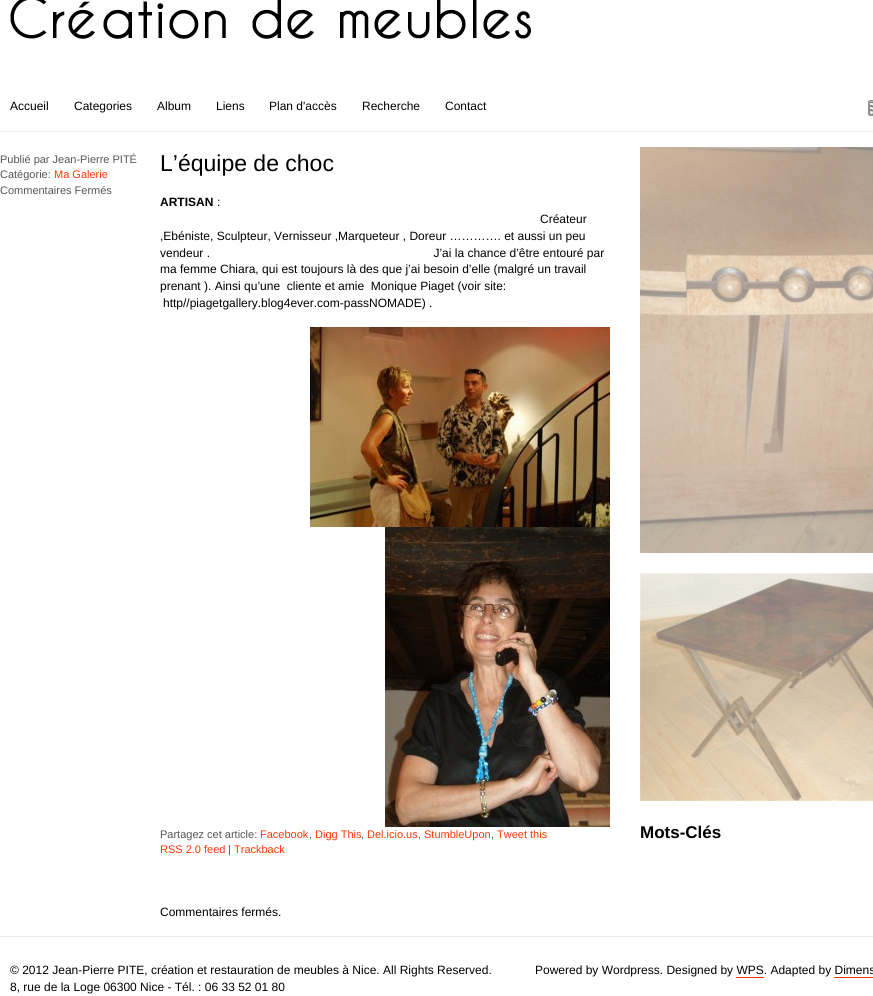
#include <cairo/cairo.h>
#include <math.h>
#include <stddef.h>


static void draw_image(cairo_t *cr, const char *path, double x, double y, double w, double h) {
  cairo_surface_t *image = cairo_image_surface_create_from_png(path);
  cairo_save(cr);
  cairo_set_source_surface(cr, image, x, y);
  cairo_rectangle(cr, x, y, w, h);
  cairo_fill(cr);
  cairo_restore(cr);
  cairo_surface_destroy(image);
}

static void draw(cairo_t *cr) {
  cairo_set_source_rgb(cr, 1, 1, 1);
  cairo_paint(cr);
  draw_image(cr, "images/1.png", 10, 0, 521, 39);
  cairo_set_source_rgb(cr, 238 / 255.0, 238 / 255.0, 238 / 255.0);
  cairo_rectangle(cr, 0, 131, 873, 1);
  cairo_fill(cr);
  draw_image(cr, "images/2.png", 868, 100, 5, 16);
  draw_image(cr, "images/3.png", 310, 327, 300, 200);
  draw_image(cr, "images/4.png", 385, 527, 225, 300);
  draw_image(cr, "images/5.png", 640, 147, 233, 406);
  draw_image(cr, "images/6.png", 640, 573, 233, 228);
  cairo_rectangle(cr, 0, 936, 873, 1);
  cairo_fill(cr);
  cairo_set_source_rgb(cr, 1, 55 / 255.0, 6 / 255.0);
  cairo_rectangle(cr, 736, 977, 28, 1);
  cairo_fill(cr);
  cairo_rectangle(cr, 834, 977, 39, 1);
  cairo_fill(cr);
  cairo_select_font_face(cr, "Liberation Sans", CAIRO_FONT_SLANT_NORMAL, CAIRO_FONT_WEIGHT_NORMAL);
  cairo_set_font_size(cr, 12);
  cairo_set_source_rgb(cr, 0, 0, 0);
  cairo_move_to(cr, 10, 110);
  cairo_show_text(cr, "Accueil");
  cairo_move_to(cr, 74, 110);
  cairo_show_text(cr, "Categories");
  cairo_move_to(cr, 157, 110);
  cairo_show_text(cr, "Album");
  cairo_move_to(cr, 216, 110);
  cairo_show_text(cr, "Liens");
  cairo_move_to(cr, 269, 110);
  cairo_show_text(cr, "Plan d'accès");
  cairo_move_to(cr, 362, 110);
  cairo_show_text(cr, "Recherche");
  cairo_move_to(cr, 445, 110);
  cairo_show_text(cr, "Contact");
  cairo_set_font_size(cr, 11);
  cairo_set_source_rgb(cr, 85 / 255.0, 85 / 255.0, 85 / 255.0);
  cairo_move_to(cr, 0, 163);
  cairo_show_text(cr, "Publié par Jean-Pierre PITÉ");
  cairo_move_to(cr, 0, 178);
  cairo_show_text(cr, "Catégorie:");
  cairo_set_source_rgb(cr, 1, 55 / 255.0, 6 / 255.0);
  cairo_move_to(cr, 54, 178);
  cairo_show_text(cr, "Ma Galerie");
  cairo_set_source_rgb(cr, 85 / 255.0, 85 / 255.0, 85 / 255.0);
  cairo_move_to(cr, 0, 194);
  cairo_show_text(cr, "Commentaires Fermés");
  cairo_set_font_size(cr, 23);
  cairo_set_source_rgb(cr, 0, 0, 0);
  cairo_move_to(cr, 160, 171);
  cairo_show_text(cr, "L’équipe de choc");
  cairo_select_font_face(cr, "Liberation Sans", CAIRO_FONT_SLANT_NORMAL, CAIRO_FONT_WEIGHT_BOLD);
  cairo_set_font_size(cr, 12);
  cairo_move_to(cr, 160, 206);
  cairo_show_text(cr, "ARTISAN");
  cairo_select_font_face(cr, "Liberation Sans", CAIRO_FONT_SLANT_NORMAL, CAIRO_FONT_WEIGHT_NORMAL);
  cairo_move_to(cr, 217, 206);
  cairo_show_text(cr, ":");
  cairo_move_to(cr, 540, 223);
  cairo_show_text(cr, "Créateur");
  cairo_move_to(cr, 160, 240);
  cairo_show_text(cr, ",Ebéniste, Sculpteur, Vernisseur ,Marqueteur , Doreur …………. et aussi un peu");
  cairo_move_to(cr, 160, 257);
  cairo_show_text(cr, "vendeur .                                                                   J’ai la chance d’être entouré par");
  cairo_move_to(cr, 160, 273);
  cairo_show_text(cr, "ma femme Chiara, qui est toujours là des que j’ai besoin d’elle (malgré un travail");
  cairo_move_to(cr, 160, 290);
  cairo_show_text(cr, "prenant ). Ainsi qu’une  cliente et amie  Monique Piaget (voir site:");
  cairo_move_to(cr, 163, 307);
  cairo_show_text(cr, "http//piagetgallery.blog4ever.com-passNOMADE) .");
  cairo_set_font_size(cr, 11);
  cairo_set_source_rgb(cr, 85 / 255.0, 85 / 255.0, 85 / 255.0);
  cairo_move_to(cr, 160, 838);
  cairo_show_text(cr, "Partagez cet article:");
  cairo_set_source_rgb(cr, 1, 55 / 255.0, 6 / 255.0);
  cairo_move_to(cr, 260, 838);
  cairo_show_text(cr, "Facebook");
  cairo_set_source_rgb(cr, 85 / 255.0, 85 / 255.0, 85 / 255.0);
  cairo_move_to(cr, 309, 838);
  cairo_show_text(cr, ",");
  cairo_set_source_rgb(cr, 1, 55 / 255.0, 6 / 255.0);
  cairo_move_to(cr, 315, 838);
  cairo_show_text(cr, "Digg This");
  cairo_set_source_rgb(cr, 85 / 255.0, 85 / 255.0, 85 / 255.0);
  cairo_move_to(cr, 361, 838);
  cairo_show_text(cr, ",");
  cairo_set_source_rgb(cr, 1, 55 / 255.0, 6 / 255.0);
  cairo_move_to(cr, 367, 838);
  cairo_show_text(cr, "Del.icio.us");
  cairo_set_source_rgb(cr, 85 / 255.0, 85 / 255.0, 85 / 255.0);
  cairo_move_to(cr, 418, 838);
  cairo_show_text(cr, ",");
  cairo_set_source_rgb(cr, 1, 55 / 255.0, 6 / 255.0);
  cairo_move_to(cr, 424, 838);
  cairo_show_text(cr, "StumbleUpon");
  cairo_set_source_rgb(cr, 85 / 255.0, 85 / 255.0, 85 / 255.0);
  cairo_move_to(cr, 491, 838);
  cairo_show_text(cr, ",");
  cairo_set_source_rgb(cr, 1, 55 / 255.0, 6 / 255.0);
  cairo_move_to(cr, 497, 838);
  cairo_show_text(cr, "Tweet this");
  cairo_move_to(cr, 160, 853);
  cairo_show_text(cr, "RSS 2.0 feed");
  cairo_set_source_rgb(cr, 85 / 255.0, 85 / 255.0, 85 / 255.0);
  cairo_move_to(cr, 228, 853);
  cairo_show_text(cr, "|");
  cairo_set_source_rgb(cr, 1, 55 / 255.0, 6 / 255.0);
  cairo_move_to(cr, 234, 853);
  cairo_show_text(cr, "Trackback");
  cairo_set_font_size(cr, 12);
  cairo_set_source_rgb(cr, 0, 0, 0);
  cairo_move_to(cr, 160, 916);
  cairo_show_text(cr, "Commentaires fermés.");
  cairo_select_font_face(cr, "Liberation Sans", CAIRO_FONT_SLANT_NORMAL, CAIRO_FONT_WEIGHT_BOLD);
  cairo_set_font_size(cr, 17);
  cairo_move_to(cr, 640, 838);
  cairo_show_text(cr, "Mots-Clés");
  cairo_select_font_face(cr, "Liberation Sans", CAIRO_FONT_SLANT_NORMAL, CAIRO_FONT_WEIGHT_NORMAL);
  cairo_set_font_size(cr, 12);
  cairo_move_to(cr, 10, 974);
  cairo_show_text(cr, "© 2012 Jean-Pierre PITE, création et restauration de meubles à Nice. All Rights Reserved.");
  cairo_move_to(cr, 10, 991);
  cairo_show_text(cr, "8, rue de la Loge 06300 Nice - Tél. : 06 33 52 01 80");
  cairo_move_to(cr, 535, 974);
  cairo_show_text(cr, "Powered by Wordpress. Designed by WPS. Adapted by Dimens");
}

int main(void) {
  cairo_surface_t *surface = cairo_image_surface_create(CAIRO_FORMAT_RGB24, 873, 996);
  cairo_t *cr = cairo_create(surface);
  cairo_font_options_t *options = cairo_font_options_create();
  cairo_font_options_set_hint_metrics(options, CAIRO_HINT_METRICS_OFF);
  cairo_font_options_set_hint_style(options, CAIRO_HINT_STYLE_NONE);
  cairo_set_font_options(cr, options);
  cairo_set_miter_limit(cr, 4);
  draw(cr);
  cairo_surface_write_to_png(surface, "out.png");
  cairo_font_options_destroy(options);
  cairo_destroy(cr);
  cairo_surface_destroy(surface);
  return 0;
}
